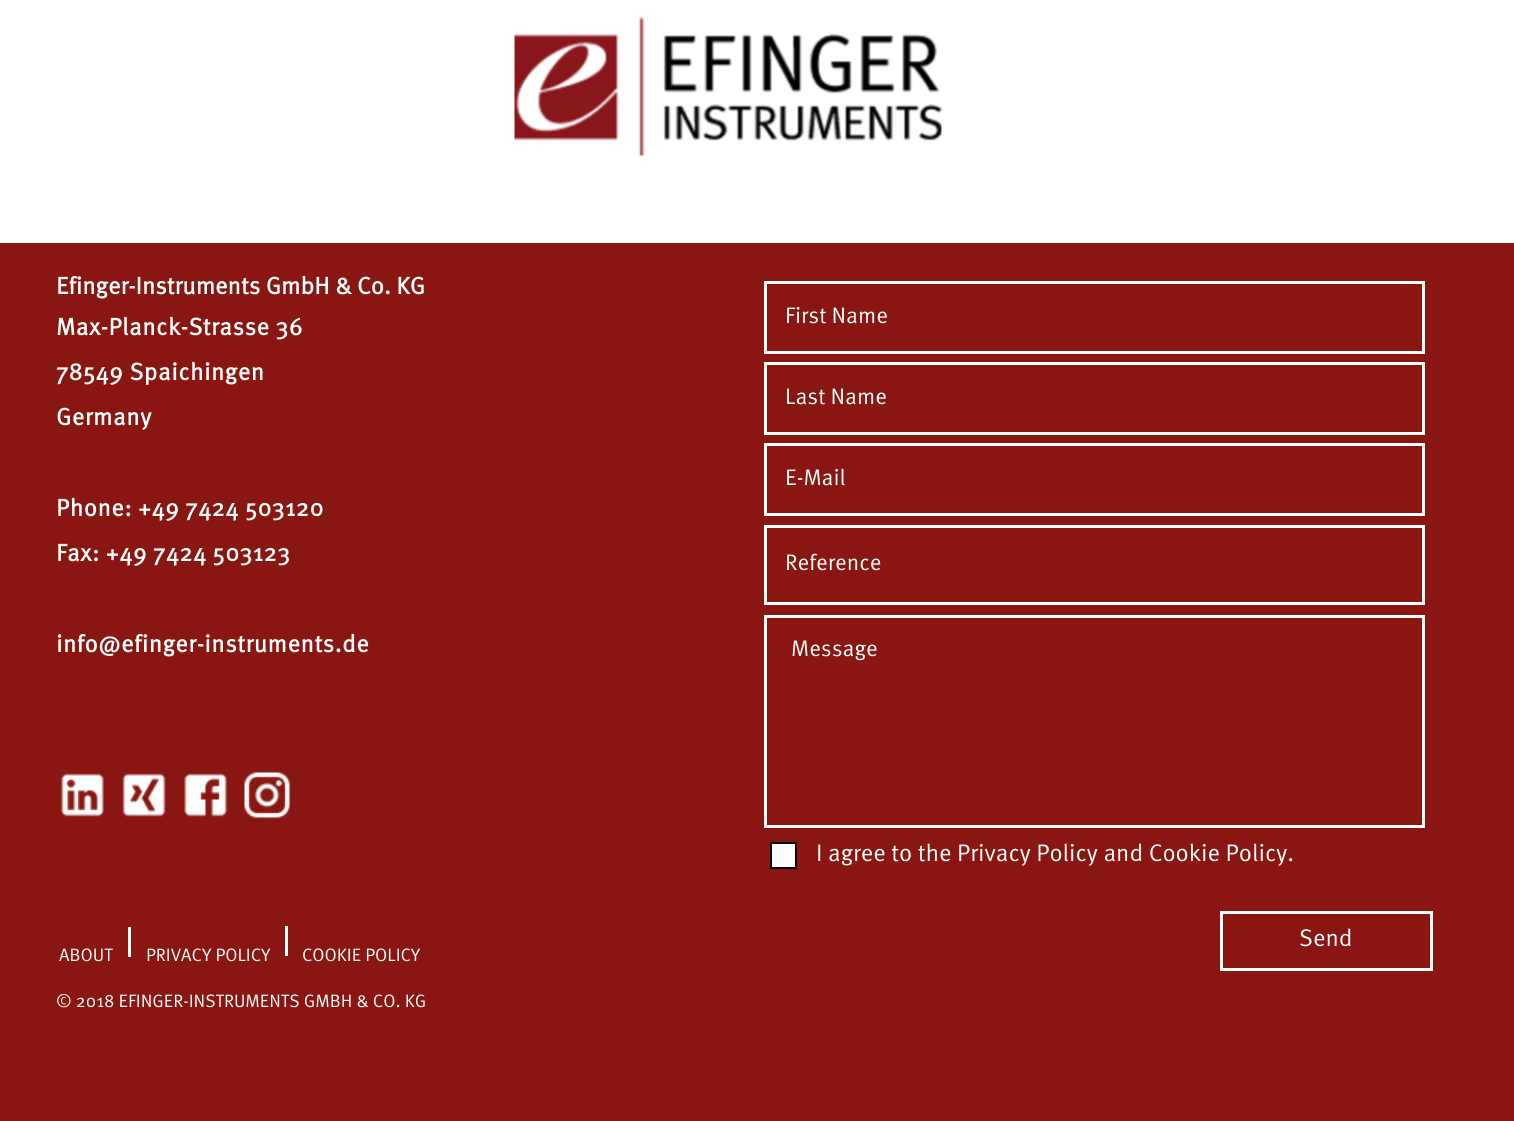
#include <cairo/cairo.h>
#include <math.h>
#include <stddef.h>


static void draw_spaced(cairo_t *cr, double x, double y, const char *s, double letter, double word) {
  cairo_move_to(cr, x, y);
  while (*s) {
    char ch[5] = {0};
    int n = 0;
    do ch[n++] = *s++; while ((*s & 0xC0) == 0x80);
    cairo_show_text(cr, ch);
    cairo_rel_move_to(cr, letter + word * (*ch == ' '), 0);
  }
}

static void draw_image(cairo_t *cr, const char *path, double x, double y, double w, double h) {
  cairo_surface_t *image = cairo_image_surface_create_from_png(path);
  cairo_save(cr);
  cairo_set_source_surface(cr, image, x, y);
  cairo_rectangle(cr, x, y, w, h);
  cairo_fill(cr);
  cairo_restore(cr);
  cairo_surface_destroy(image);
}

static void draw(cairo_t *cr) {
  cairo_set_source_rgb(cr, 138 / 255.0, 22 / 255.0, 18 / 255.0);
  cairo_paint(cr);
  cairo_set_source_rgb(cr, 1, 1, 1);
  cairo_rectangle(cr, 0, 0, 1514, 243);
  cairo_fill(cr);
  draw_image(cr, "images/1.png", 514, 16, 428, 140);
  cairo_rectangle(cr, 765.5, 282.5, 658, 70);
  cairo_set_line_width(cr, 3);
  cairo_stroke(cr);
  cairo_rectangle(cr, 765.5, 363.5, 658, 70);
  cairo_stroke(cr);
  cairo_rectangle(cr, 765.5, 444.5, 658, 70);
  cairo_stroke(cr);
  cairo_rectangle(cr, 765.5, 526.5, 658, 77);
  cairo_stroke(cr);
  cairo_rectangle(cr, 765.5, 616.5, 658, 210);
  cairo_stroke(cr);
  cairo_rectangle(cr, 771, 843, 25, 25);
  cairo_fill_preserve(cr);
  cairo_set_source_rgb(cr, 0, 0, 0);
  cairo_set_line_width(cr, 2);
  cairo_stroke(cr);
  cairo_rectangle(cr, 1221.5, 912.5, 210, 57);
  cairo_set_source_rgb(cr, 1, 1, 1);
  cairo_set_line_width(cr, 3);
  cairo_stroke(cr);
  draw_image(cr, "images/2.png", 61, 773, 43, 44);
  draw_image(cr, "images/3.png", 122, 773, 44, 44);
  draw_image(cr, "images/4.png", 184, 773, 43, 44);
  draw_image(cr, "images/5.png", 243, 771, 48, 48);
  cairo_rectangle(cr, 128, 927, 3, 30);
  cairo_fill(cr);
  cairo_rectangle(cr, 285, 926, 3, 30);
  cairo_fill(cr);
  cairo_select_font_face(cr, "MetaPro", CAIRO_FONT_SLANT_NORMAL, CAIRO_FONT_WEIGHT_BOLD);
  cairo_set_font_size(cr, 24);
  cairo_move_to(cr, 56, 294);
  cairo_show_text(cr, "Efinger-Instruments GmbH & Co. KG");
  draw_spaced(cr, 56, 335, "Max-Planck-Strasse 36", 0.5, 0);
  draw_spaced(cr, 56, 380, "78549 Spaichingen", 0.5, 0);
  draw_spaced(cr, 56, 425, "Germany", 0.5, 0);
  draw_spaced(cr, 56, 516, "Phone: +49 7424 503120", 0.5, 0);
  draw_spaced(cr, 56, 561, "Fax: +49 7424 503123", 0.5, 0);
  draw_spaced(cr, 56, 652, "info@efinger-instruments.de", 0.5, 0);
  cairo_select_font_face(cr, "MetaPro", CAIRO_FONT_SLANT_NORMAL, CAIRO_FONT_WEIGHT_NORMAL);
  cairo_set_font_size(cr, 22.5);
  cairo_move_to(cr, 785, 323);
  cairo_show_text(cr, "First Name");
  cairo_move_to(cr, 785, 404);
  cairo_show_text(cr, "Last Name");
  cairo_move_to(cr, 785, 485);
  cairo_show_text(cr, "E-Mail");
  cairo_move_to(cr, 785, 570);
  cairo_show_text(cr, "Reference");
  cairo_move_to(cr, 791, 656);
  cairo_show_text(cr, "Message");
  cairo_set_font_size(cr, 24);
  cairo_move_to(cr, 816, 861);
  cairo_show_text(cr, "I agree to the Privacy Policy and Cookie Policy.");
  cairo_move_to(cr, 1299, 946);
  cairo_show_text(cr, "Send");
  cairo_set_font_size(cr, 18);
  cairo_move_to(cr, 59, 961);
  cairo_show_text(cr, "ABOUT");
  cairo_move_to(cr, 146, 961);
  cairo_show_text(cr, "PRIVACY POLICY");
  cairo_move_to(cr, 302, 961);
  cairo_show_text(cr, "COOKIE POLICY");
  cairo_move_to(cr, 56, 1007);
  cairo_show_text(cr, "© 2018 EFINGER-INSTRUMENTS GMBH & CO. KG");
}

int main(void) {
  cairo_surface_t *surface = cairo_image_surface_create(CAIRO_FORMAT_RGB24, 1514, 1121);
  cairo_t *cr = cairo_create(surface);
  cairo_font_options_t *options = cairo_font_options_create();
  cairo_font_options_set_hint_metrics(options, CAIRO_HINT_METRICS_OFF);
  cairo_font_options_set_hint_style(options, CAIRO_HINT_STYLE_NONE);
  cairo_set_font_options(cr, options);
  cairo_set_miter_limit(cr, 4);
  draw(cr);
  cairo_surface_write_to_png(surface, "out.png");
  cairo_font_options_destroy(options);
  cairo_destroy(cr);
  cairo_surface_destroy(surface);
  return 0;
}
